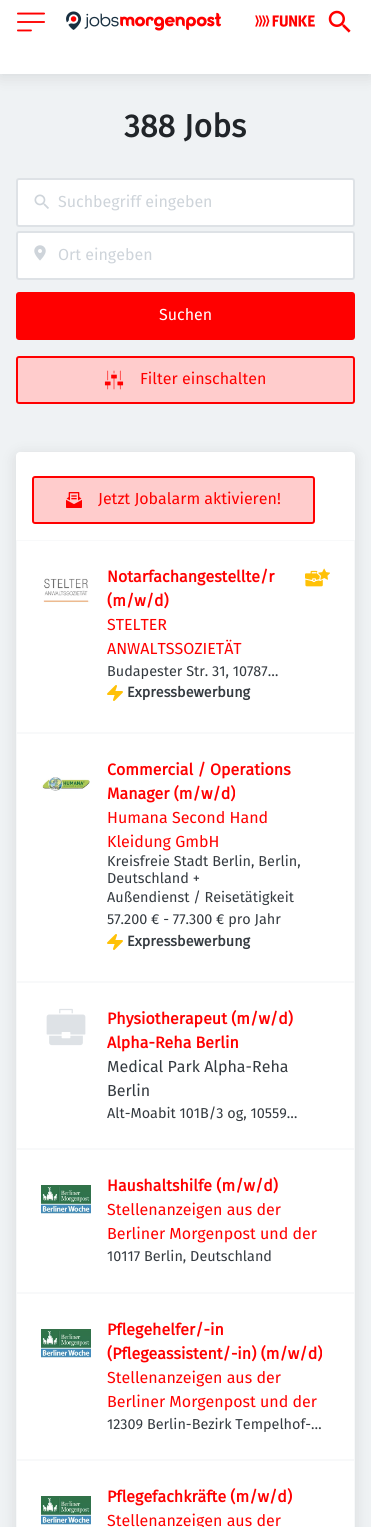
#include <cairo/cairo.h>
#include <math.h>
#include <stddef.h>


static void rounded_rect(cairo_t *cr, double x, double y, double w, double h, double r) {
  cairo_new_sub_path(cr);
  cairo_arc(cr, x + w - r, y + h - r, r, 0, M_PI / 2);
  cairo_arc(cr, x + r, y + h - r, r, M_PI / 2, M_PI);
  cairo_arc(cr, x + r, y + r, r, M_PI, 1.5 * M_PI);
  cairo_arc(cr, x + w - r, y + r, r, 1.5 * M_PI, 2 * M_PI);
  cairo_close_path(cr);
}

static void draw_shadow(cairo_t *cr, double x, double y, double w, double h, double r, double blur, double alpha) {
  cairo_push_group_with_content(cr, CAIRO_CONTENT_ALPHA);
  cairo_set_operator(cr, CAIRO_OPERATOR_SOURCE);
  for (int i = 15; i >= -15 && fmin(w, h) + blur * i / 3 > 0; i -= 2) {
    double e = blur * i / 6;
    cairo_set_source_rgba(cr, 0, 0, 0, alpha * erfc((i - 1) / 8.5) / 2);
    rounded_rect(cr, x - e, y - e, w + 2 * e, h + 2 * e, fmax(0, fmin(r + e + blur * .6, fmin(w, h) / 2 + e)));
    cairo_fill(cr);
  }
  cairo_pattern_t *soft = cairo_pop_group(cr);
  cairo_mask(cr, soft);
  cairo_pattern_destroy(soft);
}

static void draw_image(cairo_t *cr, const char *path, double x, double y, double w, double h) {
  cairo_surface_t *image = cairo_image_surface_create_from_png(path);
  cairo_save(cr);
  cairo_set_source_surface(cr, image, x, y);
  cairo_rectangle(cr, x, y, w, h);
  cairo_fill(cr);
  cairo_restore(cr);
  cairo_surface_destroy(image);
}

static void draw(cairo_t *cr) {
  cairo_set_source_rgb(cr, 239 / 255.0, 242 / 255.0, 244 / 255.0);
  cairo_paint(cr);
  cairo_set_source_rgb(cr, 0, 0, 0);
  draw_shadow(cr, 0, -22, 371, 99, 0, 7.5, 0.1);
  cairo_set_source_rgb(cr, 1, 1, 1);
  cairo_rectangle(cr, 0, 0, 371, 74);
  cairo_fill(cr);
  draw_image(cr, "images/1.png", 17, 12, 28, 20);
  draw_image(cr, "images/2.png", 66, 11, 155, 20);
  draw_image(cr, "images/3.png", 255, 15, 60, 12);
  draw_image(cr, "images/4.png", 328, 10, 23, 23);
  rounded_rect(cr, 17, 179, 337, 47, 2);
  cairo_fill_preserve(cr);
  cairo_set_source_rgb(cr, 222 / 255.0, 226 / 255.0, 230 / 255.0);
  cairo_stroke(cr);
  draw_image(cr, "images/5.png", 34, 194, 15, 15);
  cairo_set_source_rgb(cr, 1, 1, 1);
  rounded_rect(cr, 17, 232, 337, 47, 2);
  cairo_fill_preserve(cr);
  cairo_set_source_rgb(cr, 222 / 255.0, 226 / 255.0, 230 / 255.0);
  cairo_stroke(cr);
  draw_image(cr, "images/6.png", 34, 245, 12, 16);
  cairo_set_source_rgb(cr, 1, 0, 0);
  rounded_rect(cr, 17, 293, 337, 46, 2);
  cairo_fill_preserve(cr);
  cairo_stroke(cr);
  cairo_set_source_rgb(cr, 1, 204 / 255.0, 204 / 255.0);
  rounded_rect(cr, 17, 357, 337, 46, 2);
  cairo_fill_preserve(cr);
  cairo_set_source_rgb(cr, 1, 0, 0);
  cairo_stroke(cr);
  draw_image(cr, "images/7.png", 104, 370, 20, 20);
  cairo_set_source_rgb(cr, 0, 0, 0);
  draw_shadow(cr, 16, 455, 339, 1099, 4, 7.5, 0.1);
  cairo_set_source_rgb(cr, 1, 1, 1);
  rounded_rect(cr, 16, 452, 339, 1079, 4);
  cairo_fill(cr);
  cairo_set_source_rgb(cr, 1, 204 / 255.0, 204 / 255.0);
  rounded_rect(cr, 33, 477, 281, 46, 2);
  cairo_fill_preserve(cr);
  cairo_set_source_rgb(cr, 1, 0, 0);
  cairo_stroke(cr);
  draw_image(cr, "images/8.png", 66, 492, 16, 16);
  cairo_rectangle(cr, 16.5, 540.5, 338, 192);
  cairo_set_source_rgb(cr, 248 / 255.0, 249 / 255.0, 250 / 255.0);
  cairo_set_line_width(cr, 1);
  cairo_stroke(cr);
  draw_image(cr, "images/9.png", 43, 578, 47, 25);
  draw_image(cr, "images/10.png", 107, 685, 16, 16);
  draw_image(cr, "images/11.png", 305, 568, 25, 19);
  cairo_rectangle(cr, 16.5, 733.5, 338, 248);
  cairo_stroke(cr);
  draw_image(cr, "images/12.png", 41, 777, 49, 14);
  draw_image(cr, "images/10.png", 107, 934, 16, 16);
  cairo_rectangle(cr, 16.5, 982.5, 338, 166);
  cairo_stroke(cr);
  draw_image(cr, "images/13.png", 46, 1008, 40, 38);
  cairo_rectangle(cr, 16.5, 1149.5, 338, 143);
  cairo_stroke(cr);
  draw_image(cr, "images/14.png", 41, 1185, 50, 29);
  cairo_rectangle(cr, 16.5, 1293.5, 338, 166);
  cairo_stroke(cr);
  draw_image(cr, "images/14.png", 41, 1329, 50, 29);
  cairo_rectangle(cr, 16.5, 1460.5, 338, 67);
  cairo_stroke(cr);
  draw_image(cr, "images/15.png", 41, 1496, 50, 29);
  cairo_select_font_face(cr, "Fira Sans", CAIRO_FONT_SLANT_NORMAL, CAIRO_FONT_WEIGHT_BOLD);
  cairo_set_font_size(cr, 32);
  cairo_set_source_rgb(cr, 33 / 255.0, 37 / 255.0, 41 / 255.0);
  cairo_move_to(cr, 124, 137);
  cairo_show_text(cr, "388 Jobs");
  cairo_select_font_face(cr, "Fira Sans", CAIRO_FONT_SLANT_NORMAL, CAIRO_FONT_WEIGHT_NORMAL);
  cairo_set_font_size(cr, 16);
  cairo_set_source_rgb(cr, 206 / 255.0, 212 / 255.0, 218 / 255.0);
  cairo_move_to(cr, 58, 207);
  cairo_show_text(cr, "Suchbegriff eingeben");
  cairo_move_to(cr, 58, 260);
  cairo_show_text(cr, "Ort eingeben");
  cairo_set_source_rgb(cr, 1, 1, 1);
  cairo_move_to(cr, 159, 320);
  cairo_show_text(cr, "Suchen");
  cairo_set_source_rgb(cr, 1, 0, 0);
  cairo_move_to(cr, 140, 384);
  cairo_show_text(cr, "Filter einschalten");
  cairo_move_to(cr, 98, 504);
  cairo_show_text(cr, "Jetzt Jobalarm aktivieren!");
  cairo_select_font_face(cr, "Fira Sans", CAIRO_FONT_SLANT_NORMAL, CAIRO_FONT_WEIGHT_BOLD);
  cairo_move_to(cr, 107, 582);
  cairo_show_text(cr, "Notarfachangestellte/r");
  cairo_move_to(cr, 107, 606);
  cairo_show_text(cr, "(m/w/d)");
  cairo_select_font_face(cr, "Fira Sans", CAIRO_FONT_SLANT_NORMAL, CAIRO_FONT_WEIGHT_NORMAL);
  cairo_move_to(cr, 107, 630);
  cairo_show_text(cr, "STELTER");
  cairo_move_to(cr, 107, 654);
  cairo_show_text(cr, "ANWALTSSOZIETÄT");
  cairo_set_font_size(cr, 14.4);
  cairo_set_source_rgb(cr, 52 / 255.0, 58 / 255.0, 64 / 255.0);
  cairo_move_to(cr, 107, 676);
  cairo_show_text(cr, "Budapester Str. 31, 10787…");
  cairo_select_font_face(cr, "Fira Sans", CAIRO_FONT_SLANT_NORMAL, CAIRO_FONT_WEIGHT_BOLD);
  cairo_move_to(cr, 127, 697);
  cairo_show_text(cr, "Expressbewerbung");
  cairo_set_font_size(cr, 16);
  cairo_set_source_rgb(cr, 1, 0, 0);
  cairo_move_to(cr, 107, 775);
  cairo_show_text(cr, "Commercial / Operations");
  cairo_move_to(cr, 107, 799);
  cairo_show_text(cr, "Manager (m/w/d)");
  cairo_select_font_face(cr, "Fira Sans", CAIRO_FONT_SLANT_NORMAL, CAIRO_FONT_WEIGHT_NORMAL);
  cairo_move_to(cr, 107, 823);
  cairo_show_text(cr, "Humana Second Hand");
  cairo_move_to(cr, 107, 847);
  cairo_show_text(cr, "Kleidung GmbH");
  cairo_set_font_size(cr, 14.4);
  cairo_set_source_rgb(cr, 52 / 255.0, 58 / 255.0, 64 / 255.0);
  cairo_move_to(cr, 107, 866);
  cairo_show_text(cr, "Kreisfreie Stadt Berlin, Berlin,");
  cairo_move_to(cr, 107, 883);
  cairo_show_text(cr, "Deutschland +");
  cairo_move_to(cr, 107, 902);
  cairo_show_text(cr, "Außendienst / Reisetätigkeit");
  cairo_move_to(cr, 107, 924);
  cairo_show_text(cr, "57.200 € - 77.300 € pro Jahr");
  cairo_select_font_face(cr, "Fira Sans", CAIRO_FONT_SLANT_NORMAL, CAIRO_FONT_WEIGHT_BOLD);
  cairo_move_to(cr, 127, 946);
  cairo_show_text(cr, "Expressbewerbung");
  cairo_set_font_size(cr, 16);
  cairo_set_source_rgb(cr, 1, 0, 0);
  cairo_move_to(cr, 107, 1024);
  cairo_show_text(cr, "Physiotherapeut (m/w/d)");
  cairo_move_to(cr, 107, 1048);
  cairo_show_text(cr, "Alpha-Reha Berlin");
  cairo_select_font_face(cr, "Fira Sans", CAIRO_FONT_SLANT_NORMAL, CAIRO_FONT_WEIGHT_NORMAL);
  cairo_set_source_rgb(cr, 52 / 255.0, 58 / 255.0, 64 / 255.0);
  cairo_move_to(cr, 107, 1072);
  cairo_show_text(cr, "Medical Park Alpha-Reha");
  cairo_move_to(cr, 107, 1096);
  cairo_show_text(cr, "Berlin");
  cairo_set_font_size(cr, 14.4);
  cairo_move_to(cr, 107, 1118);
  cairo_show_text(cr, "Alt-Moabit 101B/3 og, 10559…");
  cairo_select_font_face(cr, "Fira Sans", CAIRO_FONT_SLANT_NORMAL, CAIRO_FONT_WEIGHT_BOLD);
  cairo_set_font_size(cr, 16);
  cairo_set_source_rgb(cr, 1, 0, 0);
  cairo_move_to(cr, 107, 1191);
  cairo_show_text(cr, "Haushaltshilfe (m/w/d)");
  cairo_select_font_face(cr, "Fira Sans", CAIRO_FONT_SLANT_NORMAL, CAIRO_FONT_WEIGHT_NORMAL);
  cairo_move_to(cr, 107, 1215);
  cairo_show_text(cr, "Stellenanzeigen aus der");
  cairo_move_to(cr, 107, 1239);
  cairo_show_text(cr, "Berliner Morgenpost und der");
  cairo_set_font_size(cr, 14.4);
  cairo_set_source_rgb(cr, 52 / 255.0, 58 / 255.0, 64 / 255.0);
  cairo_move_to(cr, 107, 1261);
  cairo_show_text(cr, "10117 Berlin, Deutschland");
  cairo_select_font_face(cr, "Fira Sans", CAIRO_FONT_SLANT_NORMAL, CAIRO_FONT_WEIGHT_BOLD);
  cairo_set_font_size(cr, 16);
  cairo_set_source_rgb(cr, 1, 0, 0);
  cairo_move_to(cr, 107, 1335);
  cairo_show_text(cr, "Pflegehelfer/-in");
  cairo_move_to(cr, 107, 1359);
  cairo_show_text(cr, "(Pflegeassistent/-in) (m/w/d)");
  cairo_select_font_face(cr, "Fira Sans", CAIRO_FONT_SLANT_NORMAL, CAIRO_FONT_WEIGHT_NORMAL);
  cairo_move_to(cr, 107, 1383);
  cairo_show_text(cr, "Stellenanzeigen aus der");
  cairo_move_to(cr, 107, 1407);
  cairo_show_text(cr, "Berliner Morgenpost und der");
  cairo_set_font_size(cr, 14.4);
  cairo_set_source_rgb(cr, 52 / 255.0, 58 / 255.0, 64 / 255.0);
  cairo_move_to(cr, 107, 1429);
  cairo_show_text(cr, "12309 Berlin-Bezirk Tempelhof-…");
  cairo_select_font_face(cr, "Fira Sans", CAIRO_FONT_SLANT_NORMAL, CAIRO_FONT_WEIGHT_BOLD);
  cairo_set_font_size(cr, 16);
  cairo_set_source_rgb(cr, 1, 0, 0);
  cairo_move_to(cr, 107, 1502);
  cairo_show_text(cr, "Pflegefachkräfte (m/w/d)");
  cairo_select_font_face(cr, "Fira Sans", CAIRO_FONT_SLANT_NORMAL, CAIRO_FONT_WEIGHT_NORMAL);
  cairo_move_to(cr, 107, 1526);
  cairo_show_text(cr, "Stellenanzeigen aus der");
}

int main(void) {
  cairo_surface_t *surface = cairo_image_surface_create(CAIRO_FORMAT_RGB24, 371, 1527);
  cairo_t *cr = cairo_create(surface);
  cairo_font_options_t *options = cairo_font_options_create();
  cairo_font_options_set_hint_metrics(options, CAIRO_HINT_METRICS_OFF);
  cairo_font_options_set_hint_style(options, CAIRO_HINT_STYLE_NONE);
  cairo_set_font_options(cr, options);
  cairo_set_miter_limit(cr, 4);
  draw(cr);
  cairo_surface_write_to_png(surface, "out.png");
  cairo_font_options_destroy(options);
  cairo_destroy(cr);
  cairo_surface_destroy(surface);
  return 0;
}
